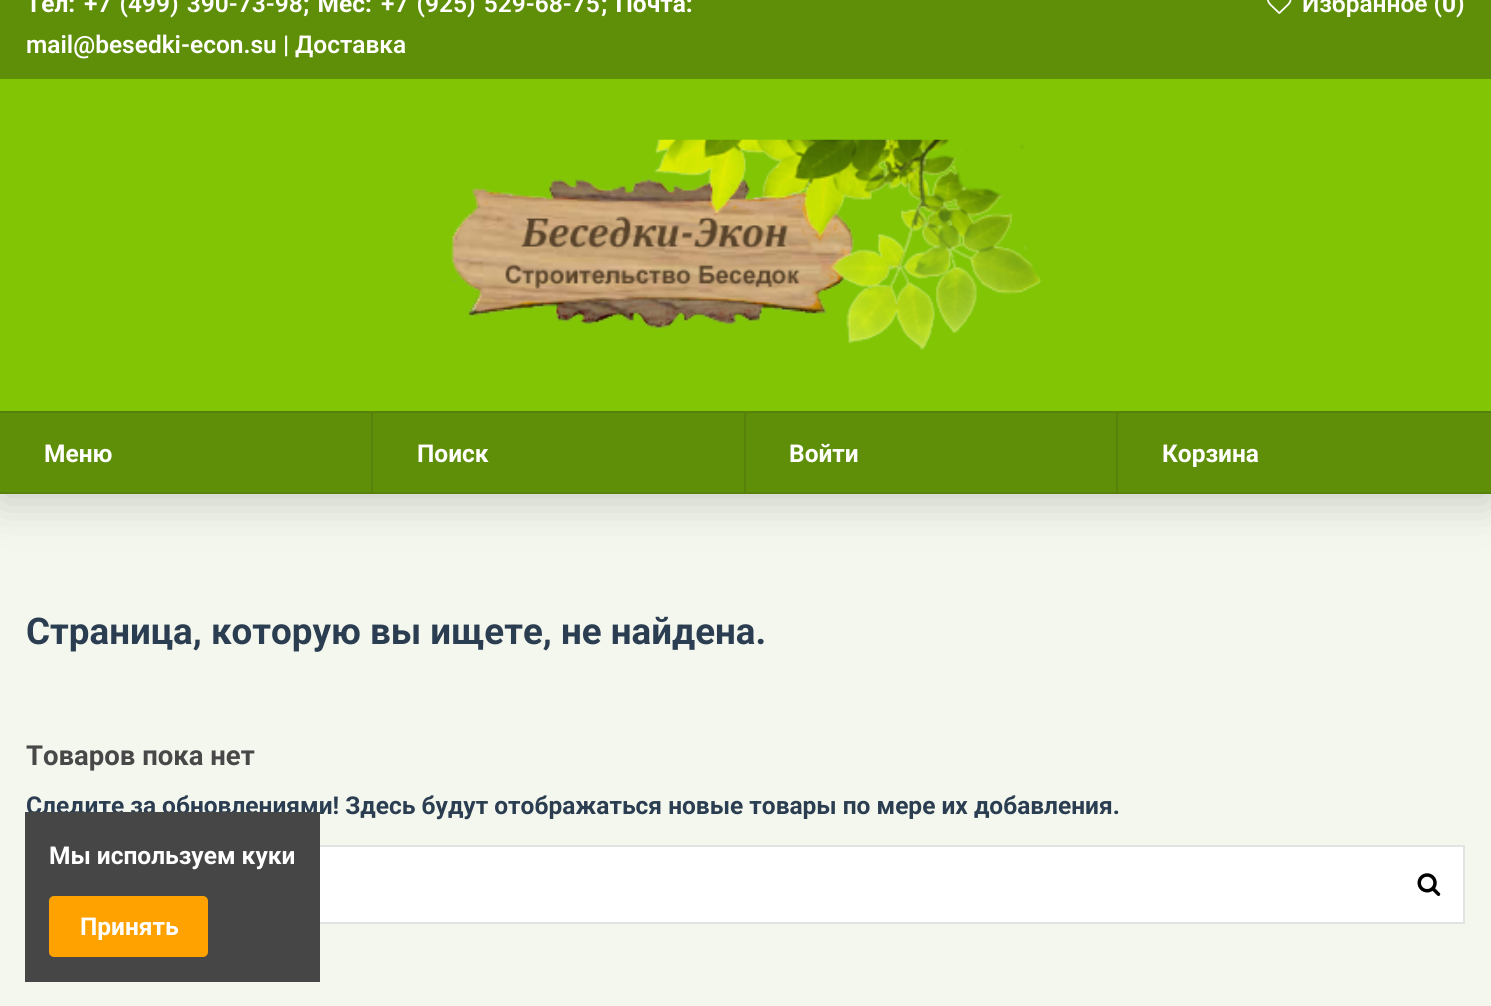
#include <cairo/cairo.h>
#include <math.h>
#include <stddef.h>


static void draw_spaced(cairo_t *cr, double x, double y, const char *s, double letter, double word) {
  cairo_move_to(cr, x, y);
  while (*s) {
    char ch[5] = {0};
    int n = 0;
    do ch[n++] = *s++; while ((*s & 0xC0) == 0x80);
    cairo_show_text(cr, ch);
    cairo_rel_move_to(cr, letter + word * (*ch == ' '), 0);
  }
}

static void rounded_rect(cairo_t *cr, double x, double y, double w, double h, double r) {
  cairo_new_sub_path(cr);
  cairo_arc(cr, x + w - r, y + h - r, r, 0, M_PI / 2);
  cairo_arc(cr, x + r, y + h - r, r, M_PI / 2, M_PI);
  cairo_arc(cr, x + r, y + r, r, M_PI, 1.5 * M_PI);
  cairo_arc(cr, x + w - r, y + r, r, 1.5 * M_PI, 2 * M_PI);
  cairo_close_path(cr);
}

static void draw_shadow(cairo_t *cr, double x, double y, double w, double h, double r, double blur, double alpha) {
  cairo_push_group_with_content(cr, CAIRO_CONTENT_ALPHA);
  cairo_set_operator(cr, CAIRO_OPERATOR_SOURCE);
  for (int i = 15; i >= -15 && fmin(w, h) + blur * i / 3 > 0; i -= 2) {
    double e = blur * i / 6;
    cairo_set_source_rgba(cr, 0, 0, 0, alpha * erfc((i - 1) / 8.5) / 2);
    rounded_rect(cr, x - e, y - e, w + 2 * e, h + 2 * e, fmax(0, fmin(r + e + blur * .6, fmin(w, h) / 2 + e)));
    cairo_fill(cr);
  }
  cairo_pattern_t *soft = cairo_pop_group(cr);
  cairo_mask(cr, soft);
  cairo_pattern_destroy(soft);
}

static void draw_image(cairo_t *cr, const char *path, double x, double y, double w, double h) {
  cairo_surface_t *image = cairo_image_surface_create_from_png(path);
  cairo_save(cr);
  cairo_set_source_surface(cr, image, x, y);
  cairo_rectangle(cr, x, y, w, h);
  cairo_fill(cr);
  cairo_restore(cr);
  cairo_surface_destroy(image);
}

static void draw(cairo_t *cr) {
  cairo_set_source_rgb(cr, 244 / 255.0, 247 / 255.0, 237 / 255.0);
  cairo_paint(cr);
  cairo_set_source_rgb(cr, 0, 0, 0);
  draw_shadow(cr, 0, -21, 1491, 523, 0, 22, 0.18);
  cairo_set_source_rgb(cr, 95 / 255.0, 143 / 255.0, 9 / 255.0);
  cairo_rectangle(cr, 0, 0, 1491, 79);
  cairo_fill(cr);
  draw_image(cr, "images/1.png", 1267, 0, 25, 14);
  cairo_set_source_rgb(cr, 129 / 255.0, 197 / 255.0, 5 / 255.0);
  cairo_rectangle(cr, 0, 79, 1491, 332);
  cairo_fill(cr);
  draw_image(cr, "images/2.png", 451, 139, 591, 211);
  cairo_set_source_rgb(cr, 95 / 255.0, 143 / 255.0, 9 / 255.0);
  cairo_rectangle(cr, 0, 411, 1491, 83);
  cairo_fill(cr);
  cairo_set_source_rgb(cr, 87 / 255.0, 130 / 255.0, 10 / 255.0);
  cairo_new_path(cr);
  cairo_move_to(cr, 0, 411);
  cairo_line_to(cr, 373, 411);
  cairo_line_to(cr, 371, 413);
  cairo_line_to(cr, 0, 413);
  cairo_close_path(cr);
  cairo_fill(cr);
  cairo_set_source_rgba(cr, 21 / 255.0, 21 / 255.0, 21 / 255.0, 0.11);
  cairo_new_path(cr);
  cairo_move_to(cr, 373, 411);
  cairo_line_to(cr, 373, 494);
  cairo_line_to(cr, 371, 492);
  cairo_line_to(cr, 371, 413);
  cairo_close_path(cr);
  cairo_fill(cr);
  cairo_new_path(cr);
  cairo_move_to(cr, 373, 494);
  cairo_line_to(cr, 0, 494);
  cairo_line_to(cr, 0, 492);
  cairo_line_to(cr, 371, 492);
  cairo_close_path(cr);
  cairo_fill(cr);
  cairo_set_source_rgb(cr, 87 / 255.0, 130 / 255.0, 10 / 255.0);
  cairo_new_path(cr);
  cairo_move_to(cr, 373, 411);
  cairo_line_to(cr, 746, 411);
  cairo_line_to(cr, 744, 413);
  cairo_line_to(cr, 373, 413);
  cairo_close_path(cr);
  cairo_fill(cr);
  cairo_set_source_rgba(cr, 21 / 255.0, 21 / 255.0, 21 / 255.0, 0.11);
  cairo_new_path(cr);
  cairo_move_to(cr, 746, 411);
  cairo_line_to(cr, 746, 494);
  cairo_line_to(cr, 744, 492);
  cairo_line_to(cr, 744, 413);
  cairo_close_path(cr);
  cairo_fill(cr);
  cairo_new_path(cr);
  cairo_move_to(cr, 746, 494);
  cairo_line_to(cr, 373, 494);
  cairo_line_to(cr, 373, 492);
  cairo_line_to(cr, 744, 492);
  cairo_close_path(cr);
  cairo_fill(cr);
  cairo_set_source_rgb(cr, 87 / 255.0, 130 / 255.0, 10 / 255.0);
  cairo_new_path(cr);
  cairo_move_to(cr, 746, 411);
  cairo_line_to(cr, 1118, 411);
  cairo_line_to(cr, 1116, 413);
  cairo_line_to(cr, 746, 413);
  cairo_close_path(cr);
  cairo_fill(cr);
  cairo_set_source_rgba(cr, 21 / 255.0, 21 / 255.0, 21 / 255.0, 0.11);
  cairo_new_path(cr);
  cairo_move_to(cr, 1118, 411);
  cairo_line_to(cr, 1118, 494);
  cairo_line_to(cr, 1116, 492);
  cairo_line_to(cr, 1116, 413);
  cairo_close_path(cr);
  cairo_fill(cr);
  cairo_new_path(cr);
  cairo_move_to(cr, 1118, 494);
  cairo_line_to(cr, 746, 494);
  cairo_line_to(cr, 746, 492);
  cairo_line_to(cr, 1116, 492);
  cairo_close_path(cr);
  cairo_fill(cr);
  cairo_set_source_rgb(cr, 87 / 255.0, 130 / 255.0, 10 / 255.0);
  cairo_rectangle(cr, 1118, 411, 373, 2);
  cairo_fill(cr);
  cairo_rectangle(cr, 1118, 492, 373, 2);
  cairo_fill(cr);
  cairo_set_source_rgb(cr, 1, 1, 1);
  cairo_rectangle(cr, 320, 847, 1143, 75);
  cairo_fill(cr);
  cairo_rectangle(cr, 27, 846, 1437, 77);
  cairo_set_source_rgb(cr, 227 / 255.0, 227 / 255.0, 227 / 255.0);
  cairo_stroke(cr);
  draw_image(cr, "images/3.png", 1417, 873, 24, 23);
  cairo_select_font_face(cr, "Roboto", CAIRO_FONT_SLANT_NORMAL, CAIRO_FONT_WEIGHT_BOLD);
  cairo_set_font_size(cr, 24.5);
  cairo_set_source_rgb(cr, 1, 1, 1);
  cairo_move_to(cr, 26, 12);
  cairo_show_text(cr, "Тел:");
  cairo_select_font_face(cr, "Roboto SemiBold", CAIRO_FONT_SLANT_NORMAL, CAIRO_FONT_WEIGHT_NORMAL);
  draw_spaced(cr, 84, 12, "+7 (499) 390-73-98", 0, 2);
  cairo_select_font_face(cr, "Roboto", CAIRO_FONT_SLANT_NORMAL, CAIRO_FONT_WEIGHT_BOLD);
  draw_spaced(cr, 303, 12, "; Мес:", 0, 2);
  cairo_select_font_face(cr, "Roboto SemiBold", CAIRO_FONT_SLANT_NORMAL, CAIRO_FONT_WEIGHT_NORMAL);
  draw_spaced(cr, 381, 12, "+7 (925) 529-68-75", 0, 2);
  cairo_select_font_face(cr, "Roboto", CAIRO_FONT_SLANT_NORMAL, CAIRO_FONT_WEIGHT_BOLD);
  draw_spaced(cr, 601, 12, "; Почта:", 0, 2);
  cairo_select_font_face(cr, "Roboto SemiBold", CAIRO_FONT_SLANT_NORMAL, CAIRO_FONT_WEIGHT_NORMAL);
  cairo_move_to(cr, 26, 53);
  cairo_show_text(cr, "mail@besedki-econ.su");
  cairo_select_font_face(cr, "Roboto", CAIRO_FONT_SLANT_NORMAL, CAIRO_FONT_WEIGHT_BOLD);
  cairo_move_to(cr, 283, 53);
  cairo_show_text(cr, "|");
  cairo_select_font_face(cr, "Roboto SemiBold", CAIRO_FONT_SLANT_NORMAL, CAIRO_FONT_WEIGHT_NORMAL);
  cairo_move_to(cr, 295, 53);
  cairo_show_text(cr, "Доставка");
  cairo_move_to(cr, 1302, 12);
  cairo_show_text(cr, "Избранное (");
  cairo_select_font_face(cr, "Roboto", CAIRO_FONT_SLANT_NORMAL, CAIRO_FONT_WEIGHT_BOLD);
  cairo_move_to(cr, 1442, 12);
  cairo_show_text(cr, "0");
  cairo_select_font_face(cr, "Roboto SemiBold", CAIRO_FONT_SLANT_NORMAL, CAIRO_FONT_WEIGHT_NORMAL);
  cairo_move_to(cr, 1456, 12);
  cairo_show_text(cr, ")");
  cairo_select_font_face(cr, "Roboto", CAIRO_FONT_SLANT_NORMAL, CAIRO_FONT_WEIGHT_BOLD);
  cairo_move_to(cr, 44, 462);
  cairo_show_text(cr, "Меню");
  cairo_move_to(cr, 417, 462);
  cairo_show_text(cr, "Поиск");
  cairo_move_to(cr, 789, 462);
  cairo_show_text(cr, "Войти");
  cairo_move_to(cr, 1162, 462);
  cairo_show_text(cr, "Корзина");
  cairo_set_font_size(cr, 36.75);
  cairo_set_source_rgb(cr, 43 / 255.0, 61 / 255.0, 81 / 255.0);
  cairo_move_to(cr, 26, 644);
  cairo_show_text(cr, "Страница, которую вы ищете, не найдена.");
  cairo_set_font_size(cr, 27.5);
  cairo_set_source_rgb(cr, 72 / 255.0, 72 / 255.0, 72 / 255.0);
  cairo_move_to(cr, 26, 765);
  cairo_show_text(cr, "Товаров пока нет");
  cairo_set_font_size(cr, 24.5);
  cairo_set_source_rgb(cr, 43 / 255.0, 61 / 255.0, 81 / 255.0);
  cairo_move_to(cr, 26, 814);
  cairo_show_text(cr, "Следите за обновлениями! Здесь будут отображаться новые товары по мере их добавления.");
  cairo_set_source_rgb(cr, 70 / 255.0, 70 / 255.0, 70 / 255.0);
  cairo_rectangle(cr, 25, 812, 295, 170);
  cairo_fill(cr);
  cairo_set_source_rgb(cr, 1, 1, 1);
  cairo_move_to(cr, 49, 864);
  cairo_show_text(cr, "Мы используем куки");
  cairo_set_source_rgb(cr, 1, 162 / 255.0, 0);
  rounded_rect(cr, 49, 896, 159, 61, 5);
  cairo_fill(cr);
  cairo_set_source_rgb(cr, 1, 1, 1);
  cairo_move_to(cr, 80, 935);
  cairo_show_text(cr, "Принять");
}

int main(void) {
  cairo_surface_t *surface = cairo_image_surface_create(CAIRO_FORMAT_RGB24, 1491, 1006);
  cairo_t *cr = cairo_create(surface);
  cairo_font_options_t *options = cairo_font_options_create();
  cairo_font_options_set_hint_metrics(options, CAIRO_HINT_METRICS_OFF);
  cairo_font_options_set_hint_style(options, CAIRO_HINT_STYLE_NONE);
  cairo_set_font_options(cr, options);
  cairo_set_miter_limit(cr, 4);
  draw(cr);
  cairo_surface_write_to_png(surface, "out.png");
  cairo_font_options_destroy(options);
  cairo_destroy(cr);
  cairo_surface_destroy(surface);
  return 0;
}
